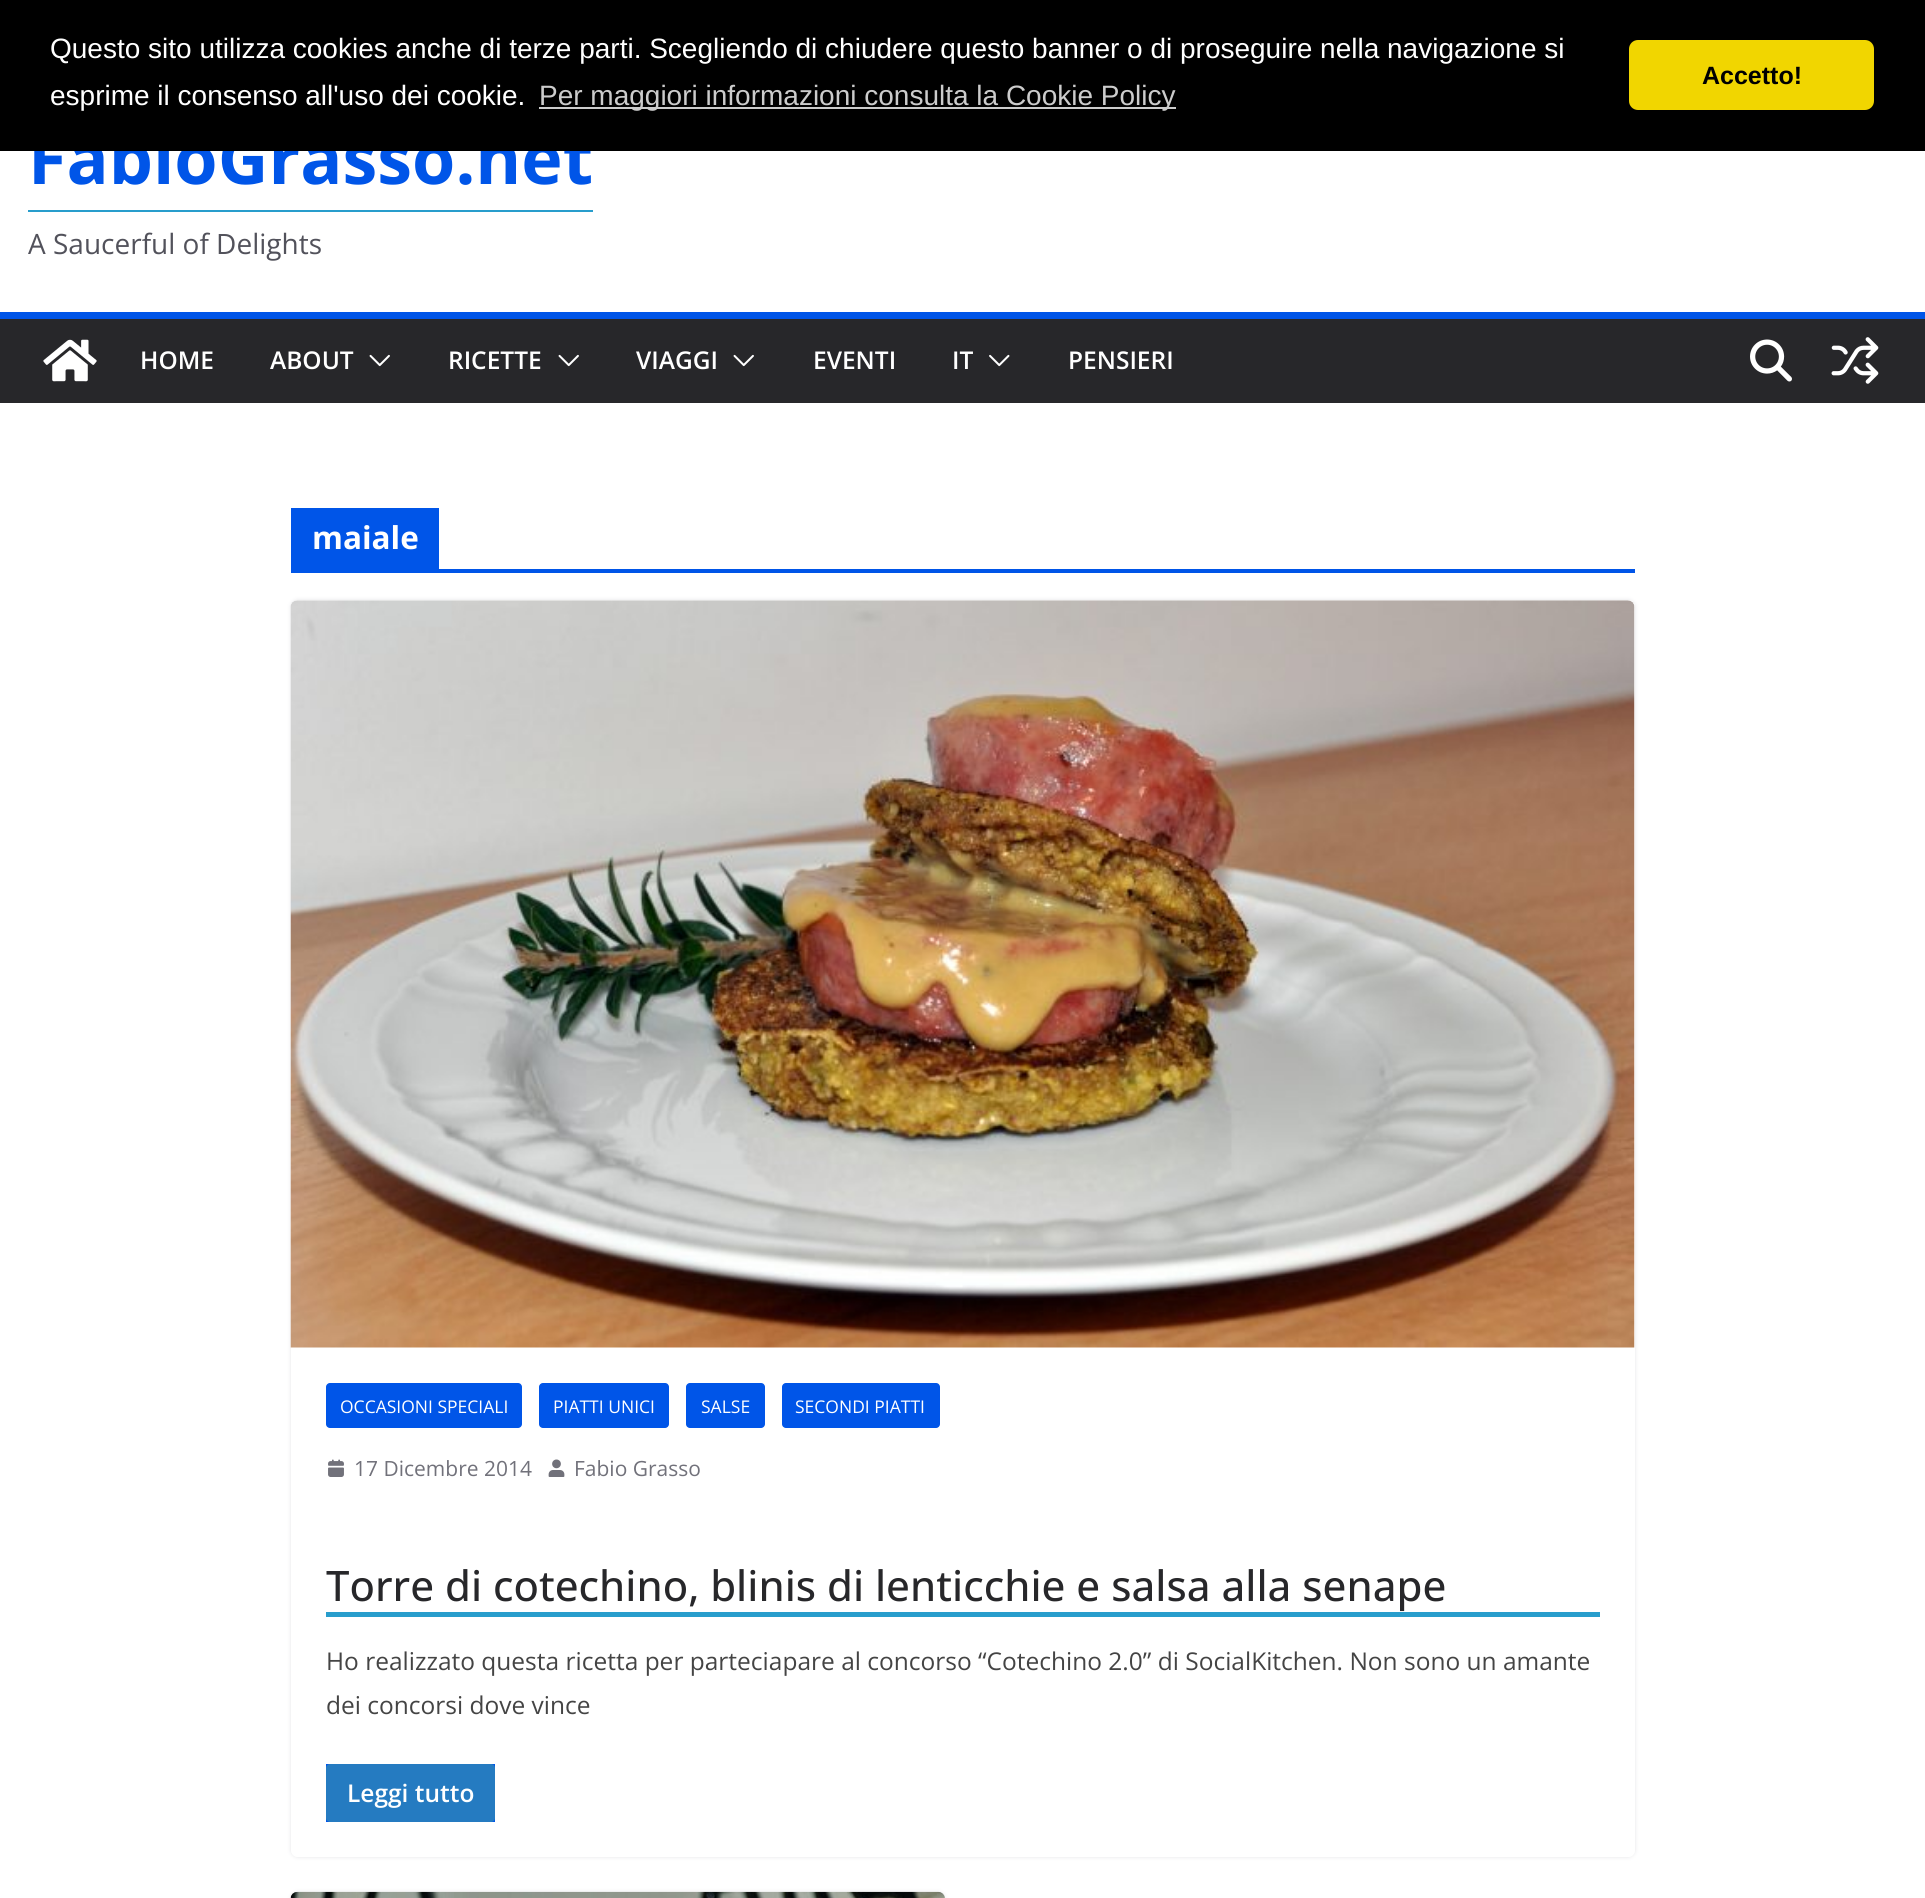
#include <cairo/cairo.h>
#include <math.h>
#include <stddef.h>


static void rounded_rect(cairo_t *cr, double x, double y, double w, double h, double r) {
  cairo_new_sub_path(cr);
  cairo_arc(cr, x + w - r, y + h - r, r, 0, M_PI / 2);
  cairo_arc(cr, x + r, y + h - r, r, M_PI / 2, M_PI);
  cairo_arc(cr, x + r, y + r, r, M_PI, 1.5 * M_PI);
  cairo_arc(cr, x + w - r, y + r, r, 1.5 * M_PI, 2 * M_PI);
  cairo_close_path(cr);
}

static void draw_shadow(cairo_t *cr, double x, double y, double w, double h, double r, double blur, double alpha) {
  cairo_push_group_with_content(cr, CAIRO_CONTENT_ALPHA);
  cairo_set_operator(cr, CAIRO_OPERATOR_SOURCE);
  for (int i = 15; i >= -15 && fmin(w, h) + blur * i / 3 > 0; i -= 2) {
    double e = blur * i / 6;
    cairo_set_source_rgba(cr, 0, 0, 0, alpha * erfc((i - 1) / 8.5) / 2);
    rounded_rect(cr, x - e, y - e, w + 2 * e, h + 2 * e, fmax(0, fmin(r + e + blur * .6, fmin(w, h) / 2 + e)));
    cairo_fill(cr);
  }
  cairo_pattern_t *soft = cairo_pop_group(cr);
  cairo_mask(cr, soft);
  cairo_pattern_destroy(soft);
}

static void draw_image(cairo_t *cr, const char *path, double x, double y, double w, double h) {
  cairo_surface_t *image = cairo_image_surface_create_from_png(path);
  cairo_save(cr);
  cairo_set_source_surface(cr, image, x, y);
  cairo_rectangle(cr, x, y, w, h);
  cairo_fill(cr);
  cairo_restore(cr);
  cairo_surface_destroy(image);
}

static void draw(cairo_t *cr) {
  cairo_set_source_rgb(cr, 1, 1, 1);
  cairo_paint(cr);
  cairo_set_source_rgb(cr, 40 / 255.0, 157 / 255.0, 204 / 255.0);
  cairo_rectangle(cr, 28, 210, 565, 2);
  cairo_fill(cr);
  cairo_set_source_rgb(cr, 39 / 255.0, 39 / 255.0, 42 / 255.0);
  cairo_rectangle(cr, 0, 319, 1925, 84);
  cairo_fill(cr);
  cairo_set_source_rgb(cr, 0, 85 / 255.0, 232 / 255.0);
  cairo_rectangle(cr, 0, 312, 1925, 7);
  cairo_fill(cr);
  draw_image(cr, "images/1.png", 43, 339, 54, 43);
  draw_image(cr, "images/2.png", 369, 354, 21, 13);
  draw_image(cr, "images/2.png", 558, 354, 21, 13);
  draw_image(cr, "images/2.png", 733, 354, 21, 13);
  draw_image(cr, "images/3.png", 989, 354, 21, 13);
  draw_image(cr, "images/4.png", 1750, 339, 42, 43);
  draw_image(cr, "images/5.png", 1831, 337, 48, 47);
  cairo_rectangle(cr, 291, 569, 1344, 4);
  cairo_fill(cr);
  cairo_rectangle(cr, 291, 508, 148, 61);
  cairo_fill(cr);
  cairo_save(cr);
  cairo_set_fill_rule(cr, CAIRO_FILL_RULE_EVEN_ODD);
  cairo_new_path(cr);
  cairo_move_to(cr, 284, 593);
  cairo_line_to(cr, 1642, 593);
  cairo_line_to(cr, 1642, 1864);
  cairo_line_to(cr, 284, 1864);
  cairo_close_path(cr);
  cairo_move_to(cr, 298, 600);
  cairo_line_to(cr, 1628, 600);
  cairo_curve_to(cr, 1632, 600, 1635, 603, 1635, 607);
  cairo_line_to(cr, 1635, 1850);
  cairo_curve_to(cr, 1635, 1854, 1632, 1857, 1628, 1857);
  cairo_line_to(cr, 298, 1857);
  cairo_curve_to(cr, 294, 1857, 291, 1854, 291, 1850);
  cairo_line_to(cr, 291, 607);
  cairo_curve_to(cr, 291, 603, 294, 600, 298, 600);
  cairo_close_path(cr);
  cairo_clip(cr);
  cairo_set_source_rgb(cr, 228 / 255.0, 228 / 255.0, 231 / 255.0);
  draw_shadow(cr, 291, 600, 1344, 1257, 7, 2, 1);
  cairo_restore(cr);
  draw_image(cr, "images/6.png", 290, 600, 1345, 748);
  rounded_rect(cr, 326, 1383, 196, 45, 4);
  cairo_fill(cr);
  rounded_rect(cr, 539, 1383, 130, 45, 4);
  cairo_fill(cr);
  rounded_rect(cr, 686, 1383, 79, 45, 4);
  cairo_fill(cr);
  rounded_rect(cr, 782, 1383, 158, 45, 4);
  cairo_fill(cr);
  draw_image(cr, "images/7.png", 328, 1459, 16, 18);
  draw_image(cr, "images/8.png", 548, 1459, 17, 18);
  cairo_set_source_rgb(cr, 40 / 255.0, 157 / 255.0, 204 / 255.0);
  cairo_rectangle(cr, 326, 1612, 1274, 5);
  cairo_fill(cr);
  cairo_set_source_rgb(cr, 0, 85 / 255.0, 232 / 255.0);
  cairo_rectangle(cr, 326, 1764, 169, 58);
  cairo_fill(cr);
  cairo_set_source_rgb(cr, 37 / 255.0, 123 / 255.0, 193 / 255.0);
  rounded_rect(cr, 326, 1764, 169, 58, 4);
  cairo_fill(cr);
  cairo_set_source_rgb(cr, 228 / 255.0, 228 / 255.0, 231 / 255.0);
  draw_shadow(cr, 291, 1892, 654, 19, 7, 2, 1);
  draw_image(cr, "images/9.png", 290, 1891, 655, 7);
  cairo_select_font_face(cr, "Open Sans", CAIRO_FONT_SLANT_NORMAL, CAIRO_FONT_WEIGHT_BOLD);
  cairo_set_font_size(cr, 70);
  cairo_set_source_rgb(cr, 0, 85 / 255.0, 232 / 255.0);
  cairo_move_to(cr, 28, 184);
  cairo_show_text(cr, "FabioGrasso.net");
  cairo_set_source_rgb(cr, 0, 0, 0);
  cairo_rectangle(cr, 0, 0, 1925, 151);
  cairo_fill(cr);
  cairo_set_source_rgb(cr, 204 / 255.0, 204 / 255.0, 204 / 255.0);
  cairo_rectangle(cr, 539, 107, 637, 2);
  cairo_fill(cr);
  cairo_select_font_face(cr, "Liberation Sans", CAIRO_FONT_SLANT_NORMAL, CAIRO_FONT_WEIGHT_NORMAL);
  cairo_set_font_size(cr, 28);
  cairo_move_to(cr, 539, 105);
  cairo_show_text(cr, "Per maggiori informazioni consulta la Cookie Policy");
  cairo_set_source_rgb(cr, 241 / 255.0, 214 / 255.0, 0);
  rounded_rect(cr, 1629, 40, 245, 70, 9);
  cairo_fill(cr);
  cairo_select_font_face(cr, "Liberation Sans", CAIRO_FONT_SLANT_NORMAL, CAIRO_FONT_WEIGHT_BOLD);
  cairo_set_font_size(cr, 25);
  cairo_set_source_rgb(cr, 0, 0, 0);
  cairo_move_to(cr, 1702, 84);
  cairo_show_text(cr, "Accetto!");
  cairo_select_font_face(cr, "Liberation Sans", CAIRO_FONT_SLANT_NORMAL, CAIRO_FONT_WEIGHT_NORMAL);
  cairo_set_font_size(cr, 28);
  cairo_set_source_rgb(cr, 1, 1, 1);
  cairo_move_to(cr, 50, 105);
  cairo_show_text(cr, "esprime il consenso all'uso dei cookie.");
  cairo_move_to(cr, 50, 58);
  cairo_show_text(cr, "Questo sito utilizza cookies anche di terze parti. Scegliendo di chiudere questo banner o di proseguire nella navigazione si");
  cairo_select_font_face(cr, "Open Sans", CAIRO_FONT_SLANT_NORMAL, CAIRO_FONT_WEIGHT_NORMAL);
  cairo_set_source_rgb(cr, 82 / 255.0, 82 / 255.0, 91 / 255.0);
  cairo_move_to(cr, 28, 254);
  cairo_show_text(cr, "A Saucerful of Delights");
  cairo_select_font_face(cr, "Open Sans SemiBold", CAIRO_FONT_SLANT_NORMAL, CAIRO_FONT_WEIGHT_NORMAL);
  cairo_set_font_size(cr, 24.5);
  cairo_set_source_rgb(cr, 1, 1, 1);
  cairo_move_to(cr, 140, 369);
  cairo_show_text(cr, "HOME");
  cairo_move_to(cr, 270, 369);
  cairo_show_text(cr, "ABOUT");
  cairo_move_to(cr, 448, 369);
  cairo_show_text(cr, "RICETTE");
  cairo_move_to(cr, 636, 369);
  cairo_show_text(cr, "VIAGGI");
  cairo_move_to(cr, 813, 369);
  cairo_show_text(cr, "EVENTI");
  cairo_move_to(cr, 952, 369);
  cairo_show_text(cr, "IT");
  cairo_move_to(cr, 1068, 369);
  cairo_show_text(cr, "PENSIERI");
  cairo_select_font_face(cr, "Open Sans", CAIRO_FONT_SLANT_NORMAL, CAIRO_FONT_WEIGHT_BOLD);
  cairo_set_font_size(cr, 31.5);
  cairo_move_to(cr, 312, 549);
  cairo_show_text(cr, "maiale");
  cairo_select_font_face(cr, "Open Sans", CAIRO_FONT_SLANT_NORMAL, CAIRO_FONT_WEIGHT_NORMAL);
  cairo_set_font_size(cr, 17.5);
  cairo_move_to(cr, 340, 1413);
  cairo_show_text(cr, "OCCASIONI SPECIALI");
  cairo_move_to(cr, 553, 1413);
  cairo_show_text(cr, "PIATTI UNICI");
  cairo_move_to(cr, 701, 1413);
  cairo_show_text(cr, "SALSE");
  cairo_move_to(cr, 795, 1413);
  cairo_show_text(cr, "SECONDI PIATTI");
  cairo_set_font_size(cr, 21);
  cairo_set_source_rgb(cr, 113 / 255.0, 113 / 255.0, 122 / 255.0);
  cairo_move_to(cr, 354, 1476);
  cairo_show_text(cr, "17 Dicembre 2014");
  cairo_move_to(cr, 574, 1476);
  cairo_show_text(cr, "Fabio Grasso");
  cairo_select_font_face(cr, "Open Sans Medium", CAIRO_FONT_SLANT_NORMAL, CAIRO_FONT_WEIGHT_NORMAL);
  cairo_set_font_size(cr, 42);
  cairo_set_source_rgb(cr, 39 / 255.0, 39 / 255.0, 42 / 255.0);
  cairo_move_to(cr, 326, 1601);
  cairo_show_text(cr, "Torre di cotechino, blinis di lenticchie e salsa alla senape");
  cairo_select_font_face(cr, "Open Sans", CAIRO_FONT_SLANT_NORMAL, CAIRO_FONT_WEIGHT_NORMAL);
  cairo_set_font_size(cr, 24.5);
  cairo_set_source_rgb(cr, 68 / 255.0, 68 / 255.0, 68 / 255.0);
  cairo_move_to(cr, 326, 1670);
  cairo_show_text(cr, "Ho realizzato questa ricetta per parteciapare al concorso “Cotechino 2.0” di SocialKitchen. Non sono un amante");
  cairo_move_to(cr, 326, 1714);
  cairo_show_text(cr, "dei concorsi dove vince");
  cairo_select_font_face(cr, "Open Sans SemiBold", CAIRO_FONT_SLANT_NORMAL, CAIRO_FONT_WEIGHT_NORMAL);
  cairo_set_source_rgb(cr, 1, 1, 1);
  cairo_move_to(cr, 347, 1802);
  cairo_show_text(cr, "Leggi tutto");
}

int main(void) {
  cairo_surface_t *surface = cairo_image_surface_create(CAIRO_FORMAT_RGB24, 1925, 1898);
  cairo_t *cr = cairo_create(surface);
  cairo_font_options_t *options = cairo_font_options_create();
  cairo_font_options_set_hint_metrics(options, CAIRO_HINT_METRICS_OFF);
  cairo_font_options_set_hint_style(options, CAIRO_HINT_STYLE_NONE);
  cairo_set_font_options(cr, options);
  cairo_set_miter_limit(cr, 4);
  draw(cr);
  cairo_surface_write_to_png(surface, "out.png");
  cairo_font_options_destroy(options);
  cairo_destroy(cr);
  cairo_surface_destroy(surface);
  return 0;
}
